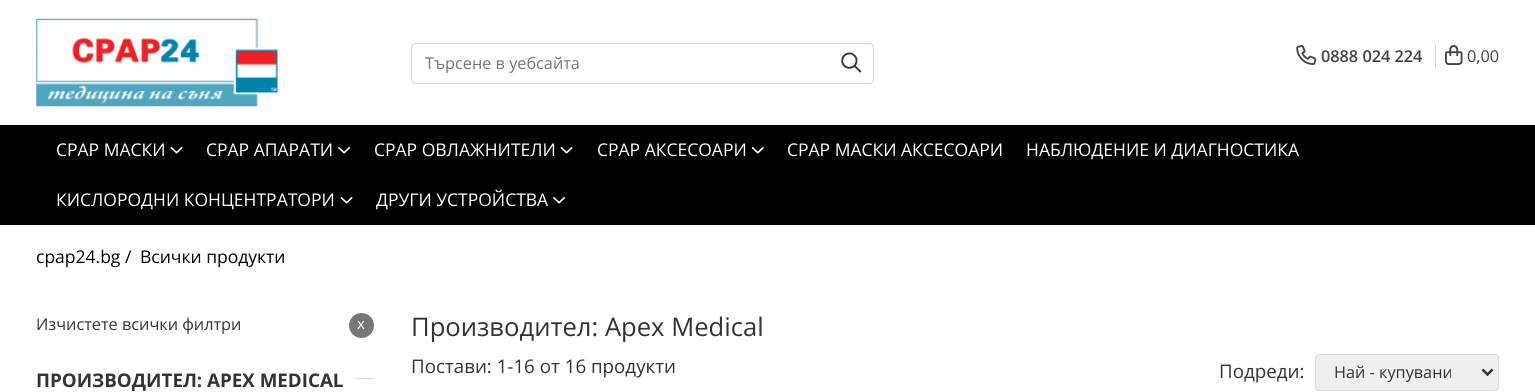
#include <cairo/cairo.h>
#include <math.h>
#include <stddef.h>


static void rounded_rect(cairo_t *cr, double x, double y, double w, double h, double r) {
  cairo_new_sub_path(cr);
  cairo_arc(cr, x + w - r, y + h - r, r, 0, M_PI / 2);
  cairo_arc(cr, x + r, y + h - r, r, M_PI / 2, M_PI);
  cairo_arc(cr, x + r, y + r, r, M_PI, 1.5 * M_PI);
  cairo_arc(cr, x + w - r, y + r, r, 1.5 * M_PI, 2 * M_PI);
  cairo_close_path(cr);
}

static void draw_image(cairo_t *cr, const char *path, double x, double y, double w, double h) {
  cairo_surface_t *image = cairo_image_surface_create_from_png(path);
  cairo_save(cr);
  cairo_set_source_surface(cr, image, x, y);
  cairo_rectangle(cr, x, y, w, h);
  cairo_fill(cr);
  cairo_restore(cr);
  cairo_surface_destroy(image);
}

static void draw(cairo_t *cr) {
  cairo_set_source_rgb(cr, 1, 1, 1);
  cairo_paint(cr);
  draw_image(cr, "images/1.png", 36, 18, 242, 89);
  rounded_rect(cr, 411.5, 43.5, 462, 40, 4.5);
  cairo_set_source_rgb(cr, 213 / 255.0, 213 / 255.0, 213 / 255.0);
  cairo_set_line_width(cr, 1);
  cairo_stroke(cr);
  draw_image(cr, "images/2.png", 841, 52, 21, 21);
  draw_image(cr, "images/3.png", 1296, 45, 21, 20);
  cairo_rectangle(cr, 1435, 45, 1, 23);
  cairo_fill(cr);
  draw_image(cr, "images/4.png", 1445, 45, 18, 20);
  cairo_set_source_rgb(cr, 0, 0, 0);
  cairo_rectangle(cr, 0, 125, 1535, 100);
  cairo_fill(cr);
  draw_image(cr, "images/5.png", 170, 147, 13, 7);
  draw_image(cr, "images/6.png", 338, 147, 12, 7);
  draw_image(cr, "images/5.png", 560, 147, 13, 7);
  draw_image(cr, "images/7.png", 751, 147, 13, 7);
  draw_image(cr, "images/5.png", 340, 197, 13, 7);
  draw_image(cr, "images/6.png", 553, 197, 12, 7);
  cairo_set_source_rgb(cr, 119 / 255.0, 119 / 255.0, 119 / 255.0);
  cairo_arc(cr, 361.5, 325.5, 12.5, 0, 2 * M_PI);
  cairo_fill(cr);
  cairo_set_source_rgb(cr, 219 / 255.0, 219 / 255.0, 219 / 255.0);
  cairo_rectangle(cr, 356, 378, 18, 1);
  cairo_fill(cr);
  cairo_set_source_rgb(cr, 239 / 255.0, 239 / 255.0, 239 / 255.0);
  rounded_rect(cr, 1315.5, 354.5, 183, 36, 3.5);
  cairo_fill_preserve(cr);
  cairo_set_source_rgb(cr, 219 / 255.0, 219 / 255.0, 219 / 255.0);
  cairo_stroke(cr);
  cairo_new_path(cr);
  cairo_move_to(cr, 1482.5, 369.5);
  cairo_line_to(cr, 1487.5, 374.5);
  cairo_line_to(cr, 1492.5, 369.5);
  cairo_set_source_rgb(cr, 51 / 255.0, 51 / 255.0, 51 / 255.0);
  cairo_set_line_width(cr, 2.5);
  cairo_stroke(cr);
  cairo_select_font_face(cr, "Open Sans", CAIRO_FONT_SLANT_NORMAL, CAIRO_FONT_WEIGHT_NORMAL);
  cairo_set_font_size(cr, 16.25);
  cairo_set_source_rgb(cr, 117 / 255.0, 117 / 255.0, 117 / 255.0);
  cairo_move_to(cr, 425, 69);
  cairo_show_text(cr, "Търсене в уебсайта");
  cairo_select_font_face(cr, "Open Sans SemiBold", CAIRO_FONT_SLANT_NORMAL, CAIRO_FONT_WEIGHT_NORMAL);
  cairo_set_source_rgb(cr, 68 / 255.0, 68 / 255.0, 68 / 255.0);
  cairo_move_to(cr, 1321, 62);
  cairo_show_text(cr, "0888 024 224");
  cairo_select_font_face(cr, "Open Sans", CAIRO_FONT_SLANT_NORMAL, CAIRO_FONT_WEIGHT_NORMAL);
  cairo_move_to(cr, 1467, 62);
  cairo_show_text(cr, "0,00");
  cairo_set_font_size(cr, 17.5);
  cairo_set_source_rgb(cr, 1, 1, 1);
  cairo_move_to(cr, 56, 156);
  cairo_show_text(cr, "CPAP МАСКИ");
  cairo_move_to(cr, 206, 156);
  cairo_show_text(cr, "CPAP АПАРАТИ");
  cairo_move_to(cr, 374, 156);
  cairo_show_text(cr, "CPAP OВЛАЖНИТЕЛИ");
  cairo_move_to(cr, 597, 156);
  cairo_show_text(cr, "CPAP АКСЕСОАРИ");
  cairo_move_to(cr, 787, 156);
  cairo_show_text(cr, "CPAP МАСКИ АКСЕСОАРИ");
  cairo_move_to(cr, 1026, 156);
  cairo_show_text(cr, "HАБЛЮДЕНИЕ И ДИАГНОСТИКА");
  cairo_move_to(cr, 56, 206);
  cairo_show_text(cr, "КИСЛОРОДНИ КОНЦЕНТРАТОРИ");
  cairo_move_to(cr, 376, 206);
  cairo_show_text(cr, "ДРУГИ УСТРОЙСТВА");
  cairo_set_source_rgb(cr, 0, 0, 0);
  cairo_move_to(cr, 36, 263);
  cairo_show_text(cr, "cpap24.bg /");
  cairo_move_to(cr, 140, 263);
  cairo_show_text(cr, "Всички продукти");
  cairo_set_font_size(cr, 16.25);
  cairo_set_source_rgb(cr, 51 / 255.0, 51 / 255.0, 51 / 255.0);
  cairo_move_to(cr, 36, 330);
  cairo_show_text(cr, "Изчистете всички филтри");
  cairo_set_font_size(cr, 15);
  cairo_set_source_rgb(cr, 1, 1, 1);
  cairo_move_to(cr, 357, 329);
  cairo_show_text(cr, "x");
  cairo_select_font_face(cr, "Open Sans", CAIRO_FONT_SLANT_NORMAL, CAIRO_FONT_WEIGHT_BOLD);
  cairo_set_font_size(cr, 18.75);
  cairo_set_source_rgb(cr, 51 / 255.0, 51 / 255.0, 51 / 255.0);
  cairo_move_to(cr, 36, 387);
  cairo_show_text(cr, "ПРОИЗВОДИТЕЛ: APEX MEDICAL");
  cairo_select_font_face(cr, "Open Sans", CAIRO_FONT_SLANT_NORMAL, CAIRO_FONT_WEIGHT_NORMAL);
  cairo_set_font_size(cr, 25.6);
  cairo_move_to(cr, 411, 336);
  cairo_show_text(cr, "Производител: Apex Medical");
  cairo_set_font_size(cr, 18.75);
  cairo_move_to(cr, 411, 373);
  cairo_show_text(cr, "Постави: 1-16 от 16 продукти");
  cairo_move_to(cr, 1219, 378);
  cairo_show_text(cr, "Подреди:");
  cairo_set_font_size(cr, 16.25);
  cairo_move_to(cr, 1334, 378);
  cairo_show_text(cr, "Най - купувани");
}

int main(void) {
  cairo_surface_t *surface = cairo_image_surface_create(CAIRO_FORMAT_RGB24, 1535, 392);
  cairo_t *cr = cairo_create(surface);
  cairo_font_options_t *options = cairo_font_options_create();
  cairo_font_options_set_hint_metrics(options, CAIRO_HINT_METRICS_OFF);
  cairo_font_options_set_hint_style(options, CAIRO_HINT_STYLE_NONE);
  cairo_set_font_options(cr, options);
  cairo_set_miter_limit(cr, 4);
  draw(cr);
  cairo_surface_write_to_png(surface, "out.png");
  cairo_font_options_destroy(options);
  cairo_destroy(cr);
  cairo_surface_destroy(surface);
  return 0;
}
